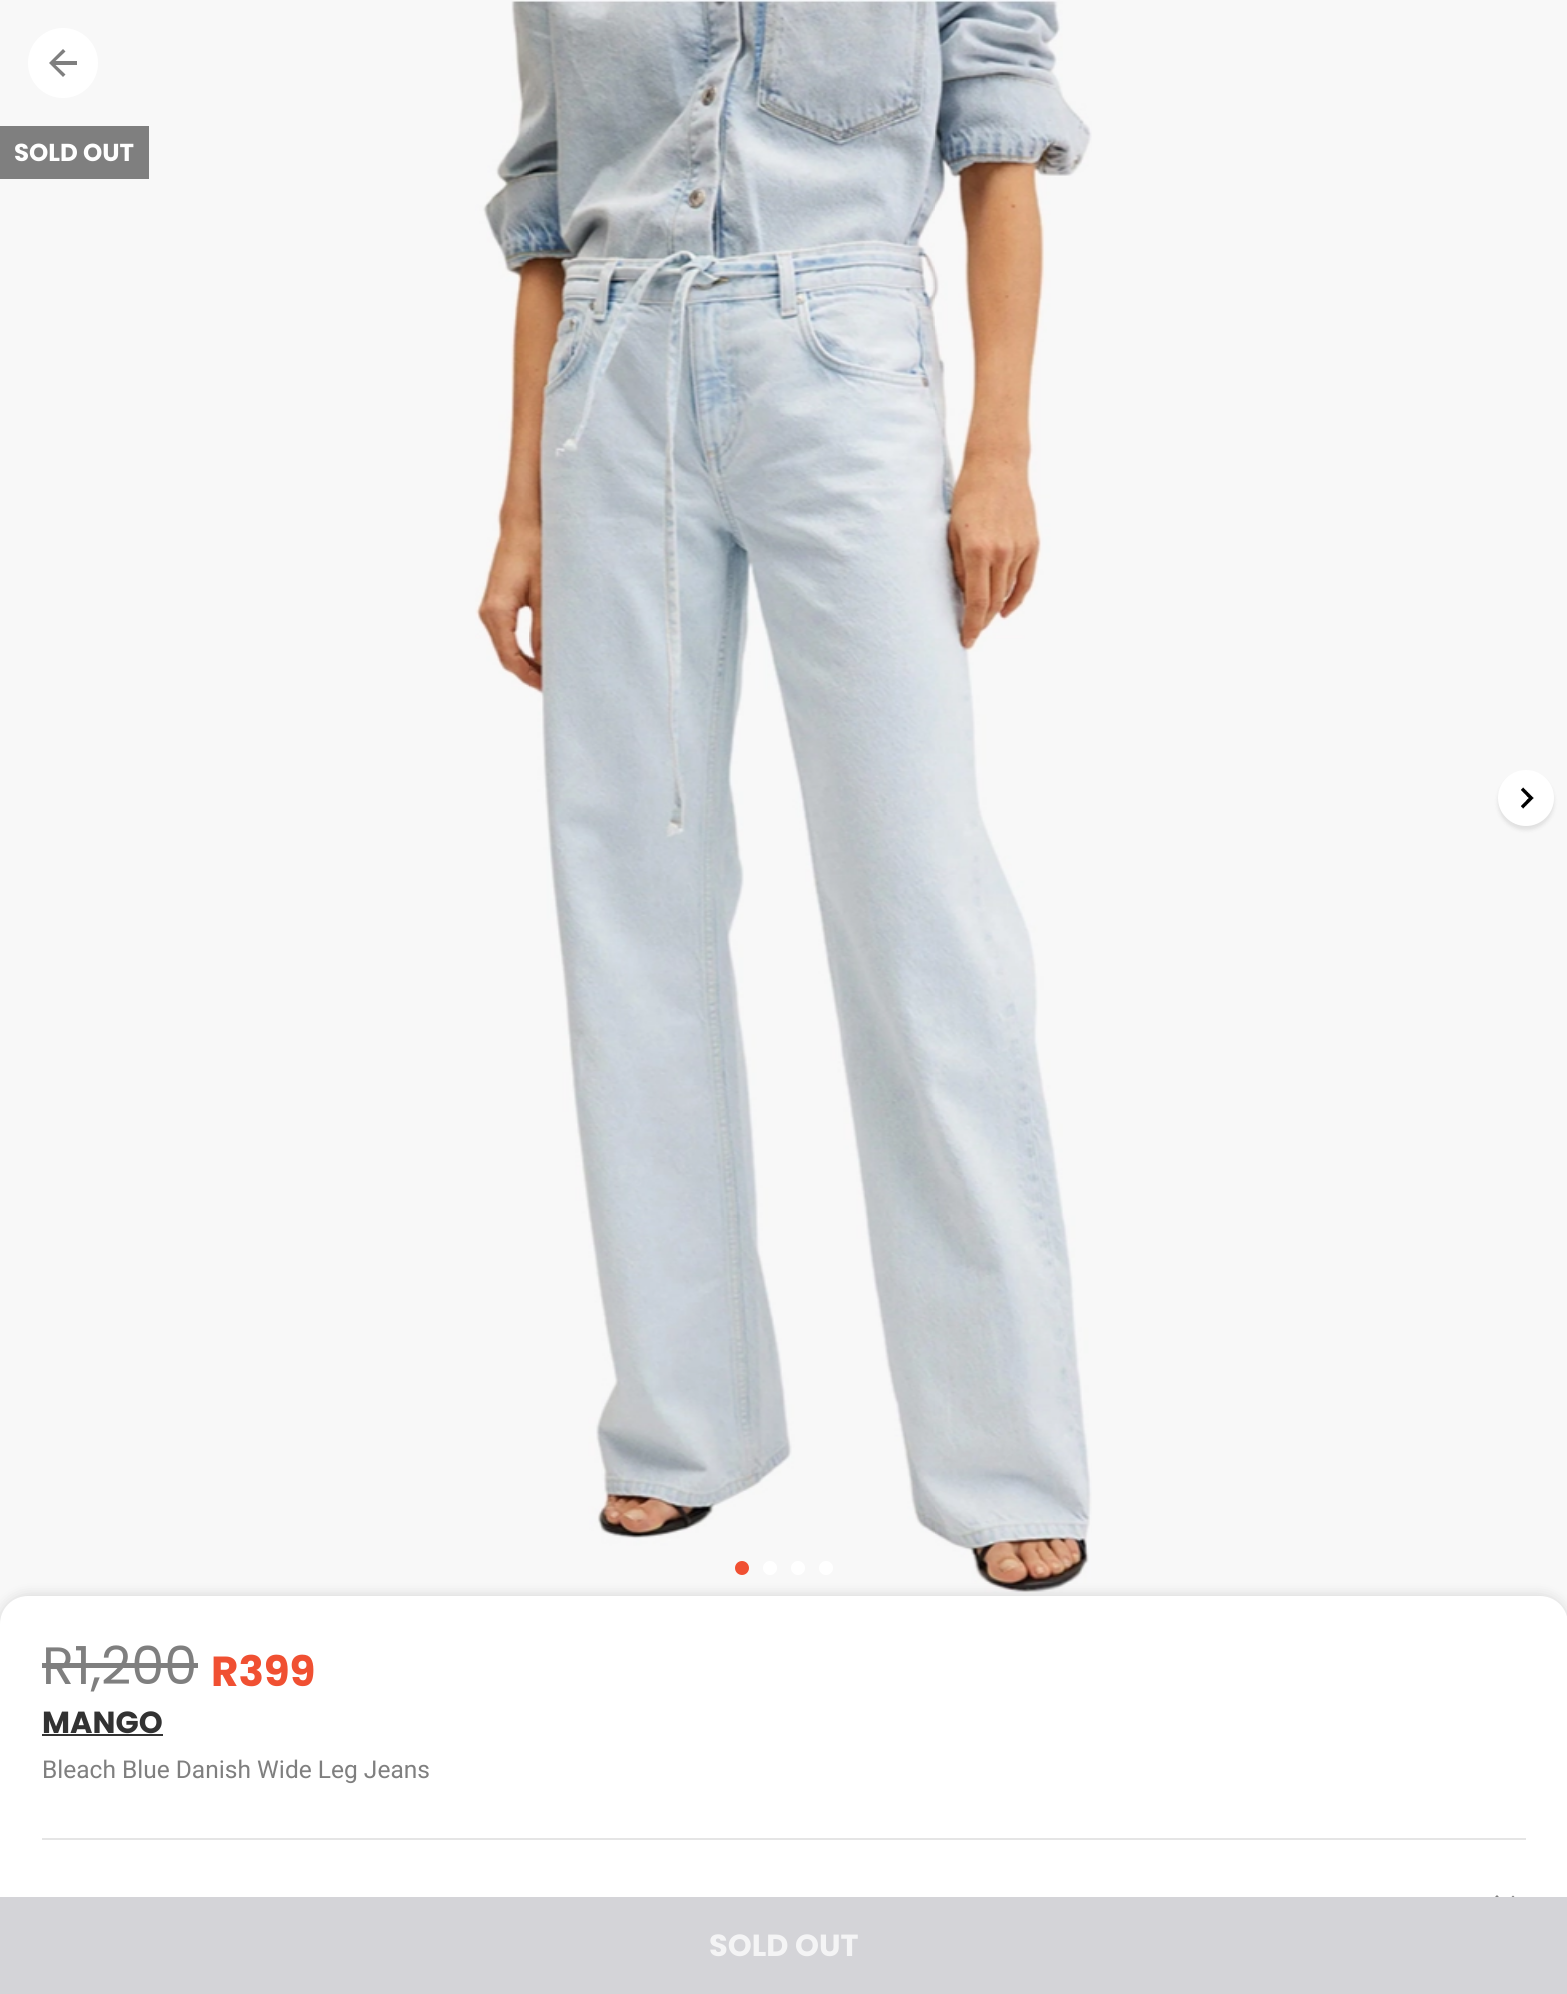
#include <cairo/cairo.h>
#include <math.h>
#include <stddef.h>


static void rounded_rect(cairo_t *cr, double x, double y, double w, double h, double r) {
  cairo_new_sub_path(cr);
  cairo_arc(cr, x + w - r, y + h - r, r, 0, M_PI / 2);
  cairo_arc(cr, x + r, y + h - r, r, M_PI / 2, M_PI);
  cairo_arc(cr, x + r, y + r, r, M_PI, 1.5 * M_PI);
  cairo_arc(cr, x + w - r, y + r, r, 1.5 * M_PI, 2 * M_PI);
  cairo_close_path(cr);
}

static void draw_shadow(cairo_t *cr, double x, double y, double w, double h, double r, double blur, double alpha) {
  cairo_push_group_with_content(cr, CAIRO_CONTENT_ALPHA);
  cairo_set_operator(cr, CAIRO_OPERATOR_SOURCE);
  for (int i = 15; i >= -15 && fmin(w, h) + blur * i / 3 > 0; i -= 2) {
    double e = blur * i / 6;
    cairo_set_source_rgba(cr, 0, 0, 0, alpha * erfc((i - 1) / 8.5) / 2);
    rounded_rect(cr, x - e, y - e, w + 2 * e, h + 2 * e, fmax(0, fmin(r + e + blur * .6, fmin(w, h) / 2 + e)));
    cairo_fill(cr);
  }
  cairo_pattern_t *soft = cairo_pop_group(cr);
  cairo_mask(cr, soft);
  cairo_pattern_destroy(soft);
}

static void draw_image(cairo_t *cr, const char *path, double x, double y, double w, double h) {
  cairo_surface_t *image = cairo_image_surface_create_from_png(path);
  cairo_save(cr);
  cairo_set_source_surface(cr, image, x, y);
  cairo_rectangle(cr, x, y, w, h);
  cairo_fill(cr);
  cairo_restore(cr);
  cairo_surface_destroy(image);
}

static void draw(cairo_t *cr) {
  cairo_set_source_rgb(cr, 248 / 255.0, 248 / 255.0, 248 / 255.0);
  cairo_paint(cr);
  cairo_set_source_rgb(cr, 1, 1, 1);
  cairo_arc(cr, 63, 63, 35, 0, 2 * M_PI);
  cairo_fill(cr);
  cairo_set_source_rgb(cr, 127 / 255.0, 127 / 255.0, 127 / 255.0);
  cairo_new_path(cr);
  cairo_move_to(cr, 63, 77);
  cairo_line_to(cr, 65.5, 74.5);
  cairo_line_to(cr, 55.5, 65);
  cairo_line_to(cr, 77, 65);
  cairo_line_to(cr, 77, 61);
  cairo_line_to(cr, 55.5, 61);
  cairo_line_to(cr, 65.5, 51.5);
  cairo_line_to(cr, 63, 49);
  cairo_line_to(cr, 49, 63);
  cairo_close_path(cr);
  cairo_fill(cr);
  cairo_rectangle(cr, 0, 126, 149, 53);
  cairo_fill(cr);
  draw_image(cr, "images/1.png", 475, 0, 617, 1593);
  cairo_set_source_rgb(cr, 0, 0, 0);
  draw_shadow(cr, 1498, 774, 56, 56, 28, 2, 0.1);
  cairo_set_source_rgb(cr, 1, 1, 1);
  cairo_arc(cr, 1526, 798, 28, 0, 2 * M_PI);
  cairo_fill(cr);
  draw_image(cr, "images/2.png", 1521, 787, 13, 22);
  cairo_set_source_rgb(cr, 240 / 255.0, 80 / 255.0, 50 / 255.0);
  cairo_arc(cr, 742, 1568, 7, 0, 2 * M_PI);
  cairo_fill(cr);
  cairo_set_source_rgb(cr, 1, 1, 1);
  cairo_arc(cr, 770, 1568, 7, 0, 2 * M_PI);
  cairo_fill(cr);
  cairo_arc(cr, 798, 1568, 7, 0, 2 * M_PI);
  cairo_fill(cr);
  cairo_arc(cr, 826, 1568, 7, 0, 2 * M_PI);
  cairo_fill(cr);
  cairo_set_source_rgb(cr, 0, 0, 0);
  draw_shadow(cr, 0, 1596, 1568, 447, 28, 7, 0.15);
  cairo_set_source_rgb(cr, 1, 1, 1);
  cairo_new_path(cr);
  cairo_move_to(cr, 28, 1596);
  cairo_line_to(cr, 1540, 1596);
  cairo_curve_to(cr, 1555.5, 1596, 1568, 1608.5, 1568, 1624);
  cairo_line_to(cr, 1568, 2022);
  cairo_line_to(cr, 0, 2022);
  cairo_line_to(cr, 0, 1624);
  cairo_curve_to(cr, 0, 1608.5, 12.5, 1596, 28, 1596);
  cairo_close_path(cr);
  cairo_fill(cr);
  cairo_set_source_rgb(cr, 127 / 255.0, 127 / 255.0, 127 / 255.0);
  cairo_rectangle(cr, 42, 1663, 156, 5);
  cairo_fill(cr);
  cairo_set_source_rgb(cr, 50 / 255.0, 50 / 255.0, 50 / 255.0);
  cairo_rectangle(cr, 42, 1734, 121, 2);
  cairo_fill(cr);
  cairo_set_source_rgb(cr, 229 / 255.0, 229 / 255.0, 229 / 255.0);
  cairo_rectangle(cr, 42, 1838, 1484, 2);
  cairo_fill(cr);
  cairo_set_source_rgb(cr, 127 / 255.0, 127 / 255.0, 127 / 255.0);
  cairo_new_path(cr);
  cairo_move_to(cr, 1497, 1895);
  cairo_line_to(cr, 1505, 1903.5);
  cairo_line_to(cr, 1513, 1895.5);
  cairo_line_to(cr, 1515.5, 1898);
  cairo_line_to(cr, 1505, 1908.5);
  cairo_line_to(cr, 1494.5, 1897.5);
  cairo_close_path(cr);
  cairo_fill(cr);
  cairo_set_source_rgb(cr, 212 / 255.0, 212 / 255.0, 216 / 255.0);
  cairo_rectangle(cr, 0, 1897, 1567, 97);
  cairo_fill(cr);
  cairo_select_font_face(cr, "Poppins", CAIRO_FONT_SLANT_NORMAL, CAIRO_FONT_WEIGHT_BOLD);
  cairo_set_font_size(cr, 24.5);
  cairo_set_source_rgb(cr, 1, 1, 1);
  cairo_move_to(cr, 14, 161);
  cairo_show_text(cr, "SOLD OUT");
  cairo_select_font_face(cr, "Poppins", CAIRO_FONT_SLANT_NORMAL, CAIRO_FONT_WEIGHT_NORMAL);
  cairo_set_font_size(cr, 52.5);
  cairo_set_source_rgb(cr, 127 / 255.0, 127 / 255.0, 127 / 255.0);
  cairo_move_to(cr, 42, 1684);
  cairo_show_text(cr, "R1,200");
  cairo_select_font_face(cr, "Poppins", CAIRO_FONT_SLANT_NORMAL, CAIRO_FONT_WEIGHT_BOLD);
  cairo_set_font_size(cr, 42);
  cairo_set_source_rgb(cr, 240 / 255.0, 80 / 255.0, 50 / 255.0);
  cairo_move_to(cr, 211, 1686);
  cairo_show_text(cr, "R399");
  cairo_set_font_size(cr, 30.5);
  cairo_set_source_rgb(cr, 50 / 255.0, 50 / 255.0, 50 / 255.0);
  cairo_move_to(cr, 42, 1733);
  cairo_show_text(cr, "MANGO");
  cairo_select_font_face(cr, "Heebo", CAIRO_FONT_SLANT_NORMAL, CAIRO_FONT_WEIGHT_NORMAL);
  cairo_set_font_size(cr, 24.5);
  cairo_set_source_rgb(cr, 127 / 255.0, 127 / 255.0, 127 / 255.0);
  cairo_move_to(cr, 42, 1778);
  cairo_show_text(cr, "Bleach Blue Danish Wide Leg Jeans");
  cairo_select_font_face(cr, "Poppins", CAIRO_FONT_SLANT_NORMAL, CAIRO_FONT_WEIGHT_BOLD);
  cairo_set_font_size(cr, 30.5);
  cairo_set_source_rgb(cr, 244 / 255.0, 244 / 255.0, 245 / 255.0);
  cairo_move_to(cr, 709, 1956);
  cairo_show_text(cr, "SOLD OUT");
}

int main(void) {
  cairo_surface_t *surface = cairo_image_surface_create(CAIRO_FORMAT_RGB24, 1567, 1994);
  cairo_t *cr = cairo_create(surface);
  cairo_font_options_t *options = cairo_font_options_create();
  cairo_font_options_set_hint_metrics(options, CAIRO_HINT_METRICS_OFF);
  cairo_font_options_set_hint_style(options, CAIRO_HINT_STYLE_NONE);
  cairo_set_font_options(cr, options);
  cairo_set_miter_limit(cr, 4);
  draw(cr);
  cairo_surface_write_to_png(surface, "out.png");
  cairo_font_options_destroy(options);
  cairo_destroy(cr);
  cairo_surface_destroy(surface);
  return 0;
}
